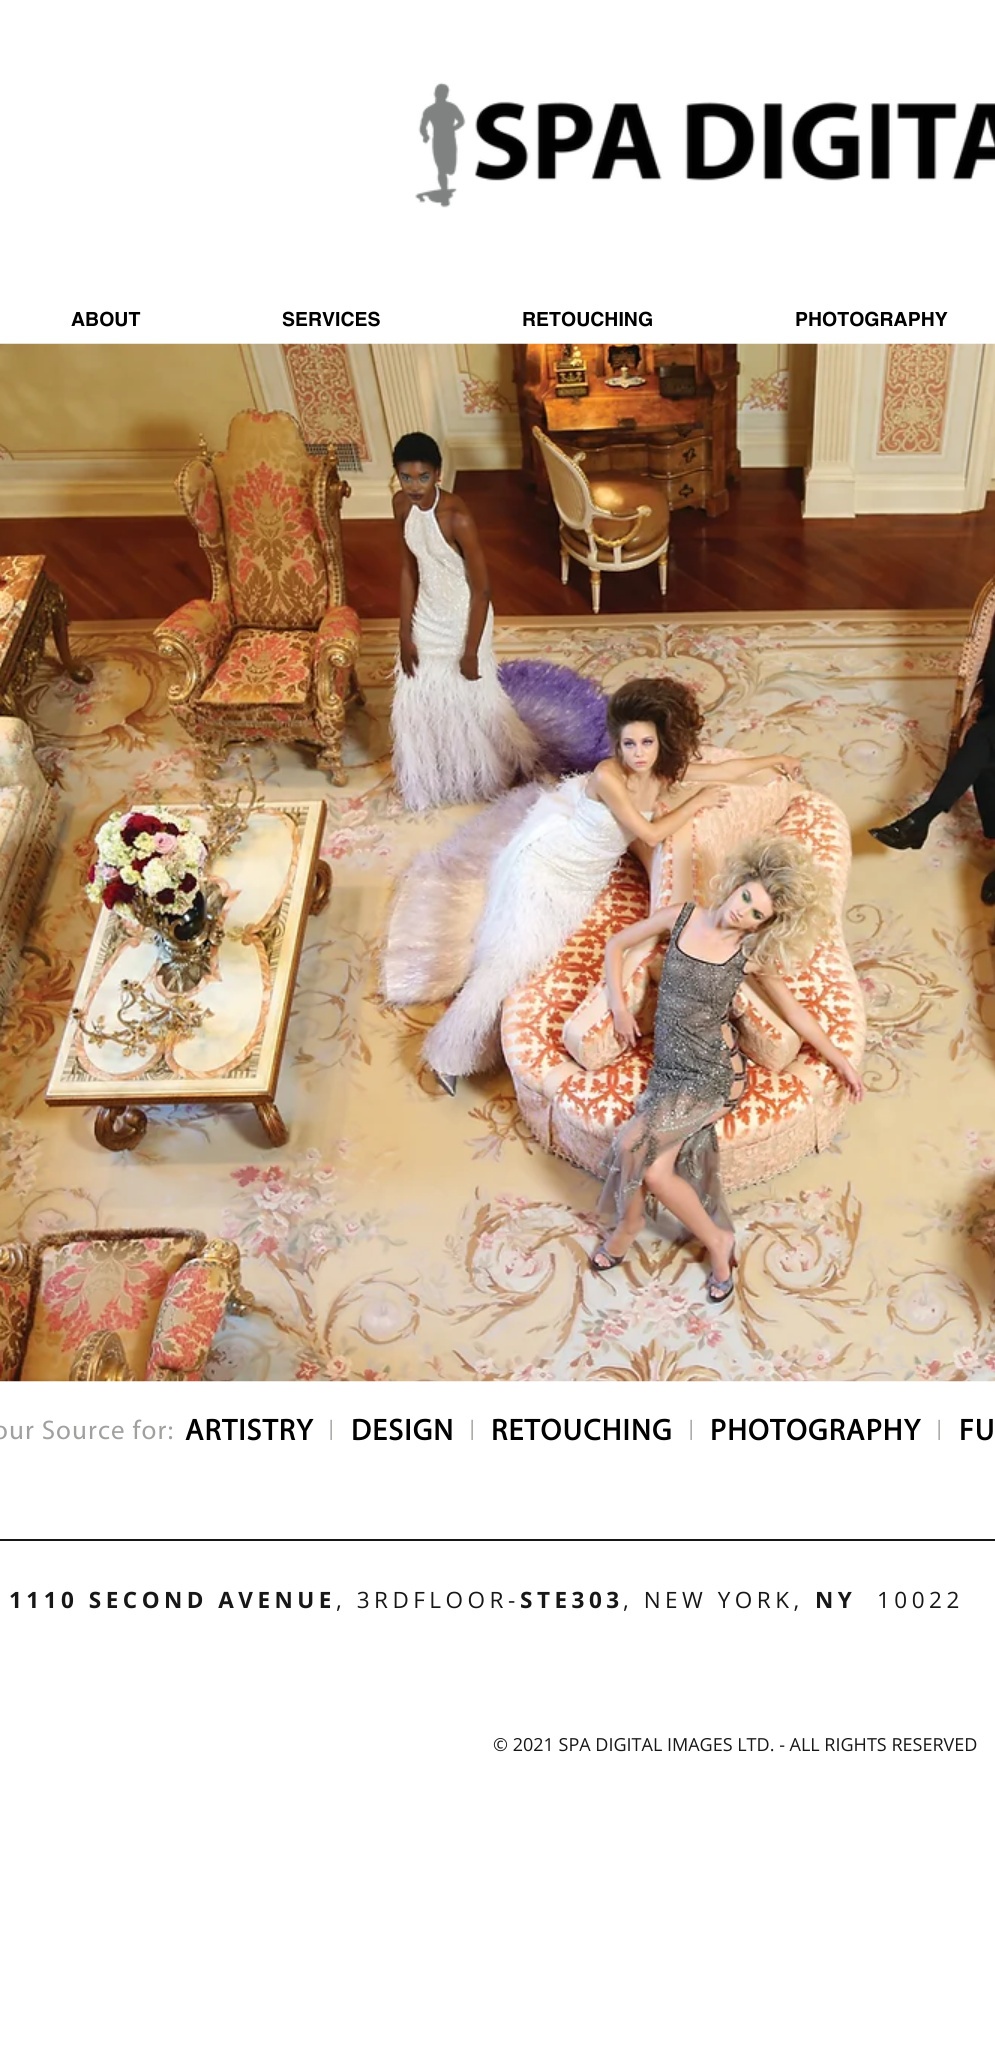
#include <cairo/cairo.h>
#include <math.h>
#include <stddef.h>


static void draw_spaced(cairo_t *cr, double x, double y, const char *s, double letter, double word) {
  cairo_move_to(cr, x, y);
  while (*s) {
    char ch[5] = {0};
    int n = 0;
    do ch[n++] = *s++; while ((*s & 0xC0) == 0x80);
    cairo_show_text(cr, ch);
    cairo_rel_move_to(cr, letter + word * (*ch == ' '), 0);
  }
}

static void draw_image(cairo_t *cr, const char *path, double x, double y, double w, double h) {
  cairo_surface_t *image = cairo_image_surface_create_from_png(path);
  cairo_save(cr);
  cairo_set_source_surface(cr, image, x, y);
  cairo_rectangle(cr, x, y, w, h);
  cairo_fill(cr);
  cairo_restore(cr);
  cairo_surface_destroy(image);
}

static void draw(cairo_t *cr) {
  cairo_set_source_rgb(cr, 1, 1, 1);
  cairo_paint(cr);
  draw_image(cr, "images/1.png", 415, 82, 51, 126);
  draw_image(cr, "images/2.png", 474, 101, 521, 80);
  draw_image(cr, "images/3.png", 0, 343, 995, 1039);
  cairo_set_source_rgb(cr, 23 / 255.0, 23 / 255.0, 23 / 255.0);
  cairo_rectangle(cr, 0, 1539, 995, 2);
  cairo_fill(cr);
  cairo_select_font_face(cr, "helvetica", CAIRO_FONT_SLANT_NORMAL, CAIRO_FONT_WEIGHT_BOLD);
  cairo_set_font_size(cr, 19.5);
  cairo_set_source_rgb(cr, 0, 0, 0);
  cairo_move_to(cr, 71, 326);
  cairo_show_text(cr, "ABOUT");
  cairo_move_to(cr, 282, 326);
  cairo_show_text(cr, "SERVICES");
  cairo_move_to(cr, 522, 326);
  cairo_show_text(cr, "RETOUCHING");
  cairo_move_to(cr, 795, 326);
  cairo_show_text(cr, "PHOTOGRAPHY");
  cairo_select_font_face(cr, "Myriad", CAIRO_FONT_SLANT_NORMAL, CAIRO_FONT_WEIGHT_NORMAL);
  cairo_set_font_size(cr, 27);
  cairo_set_source_rgb(cr, 160 / 255.0, 160 / 255.0, 159 / 255.0);
  draw_spaced(cr, -7, 1439, "our Source for:", 1.1, 0);
  cairo_select_font_face(cr, "Myriad", CAIRO_FONT_SLANT_NORMAL, CAIRO_FONT_WEIGHT_BOLD);
  cairo_set_font_size(cr, 30);
  cairo_set_source_rgb(cr, 0, 0, 0);
  draw_spaced(cr, 185, 1440, "ARTISTRY", 1.25, 0);
  cairo_select_font_face(cr, "Myriad Light", CAIRO_FONT_SLANT_NORMAL, CAIRO_FONT_WEIGHT_NORMAL);
  cairo_set_source_rgb(cr, 160 / 255.0, 160 / 255.0, 159 / 255.0);
  draw_spaced(cr, 328, 1440, "I", 1.25, 0);
  cairo_select_font_face(cr, "Myriad", CAIRO_FONT_SLANT_NORMAL, CAIRO_FONT_WEIGHT_BOLD);
  cairo_set_source_rgb(cr, 0, 0, 0);
  draw_spaced(cr, 351, 1440, "DESIGN", 1.25, 0);
  cairo_select_font_face(cr, "Myriad Light", CAIRO_FONT_SLANT_NORMAL, CAIRO_FONT_WEIGHT_NORMAL);
  cairo_set_source_rgb(cr, 160 / 255.0, 160 / 255.0, 159 / 255.0);
  draw_spaced(cr, 469, 1440, "I", 1.25, 0);
  cairo_select_font_face(cr, "Myriad", CAIRO_FONT_SLANT_NORMAL, CAIRO_FONT_WEIGHT_BOLD);
  cairo_set_source_rgb(cr, 0, 0, 0);
  draw_spaced(cr, 491, 1440, "RETOUCHING", 1.25, 0);
  cairo_select_font_face(cr, "Myriad Light", CAIRO_FONT_SLANT_NORMAL, CAIRO_FONT_WEIGHT_NORMAL);
  cairo_set_source_rgb(cr, 160 / 255.0, 160 / 255.0, 159 / 255.0);
  draw_spaced(cr, 688, 1440, "I", 1.25, 0);
  cairo_select_font_face(cr, "Myriad", CAIRO_FONT_SLANT_NORMAL, CAIRO_FONT_WEIGHT_BOLD);
  cairo_set_source_rgb(cr, 0, 0, 0);
  draw_spaced(cr, 710, 1440, "PHOTOGRAPHY", 1.25, 0);
  cairo_select_font_face(cr, "Myriad Light", CAIRO_FONT_SLANT_NORMAL, CAIRO_FONT_WEIGHT_NORMAL);
  cairo_set_source_rgb(cr, 160 / 255.0, 160 / 255.0, 159 / 255.0);
  draw_spaced(cr, 936, 1440, "I", 1.25, 0);
  cairo_select_font_face(cr, "Myriad", CAIRO_FONT_SLANT_NORMAL, CAIRO_FONT_WEIGHT_BOLD);
  cairo_set_source_rgb(cr, 0, 0, 0);
  draw_spaced(cr, 959, 1440, "FU", 1.25, 0);
  cairo_select_font_face(cr, "Open Sans", CAIRO_FONT_SLANT_NORMAL, CAIRO_FONT_WEIGHT_BOLD);
  cairo_set_font_size(cr, 22.5);
  cairo_set_source_rgb(cr, 23 / 255.0, 23 / 255.0, 23 / 255.0);
  draw_spaced(cr, 9, 1608, "1110 SECOND AVENUE", 4.5, 0);
  cairo_select_font_face(cr, "Open Sans", CAIRO_FONT_SLANT_NORMAL, CAIRO_FONT_WEIGHT_NORMAL);
  draw_spaced(cr, 336, 1608, ", 3RDFLOOR-", 4.5, 0);
  cairo_select_font_face(cr, "Open Sans", CAIRO_FONT_SLANT_NORMAL, CAIRO_FONT_WEIGHT_BOLD);
  draw_spaced(cr, 520, 1608, "STE303", 4.5, 0);
  cairo_select_font_face(cr, "Open Sans", CAIRO_FONT_SLANT_NORMAL, CAIRO_FONT_WEIGHT_NORMAL);
  draw_spaced(cr, 623, 1608, ", NEW YORK,", 4.5, 0);
  cairo_select_font_face(cr, "Open Sans", CAIRO_FONT_SLANT_NORMAL, CAIRO_FONT_WEIGHT_BOLD);
  draw_spaced(cr, 815, 1608, "NY", 4.5, 0);
  cairo_select_font_face(cr, "Open Sans", CAIRO_FONT_SLANT_NORMAL, CAIRO_FONT_WEIGHT_NORMAL);
  draw_spaced(cr, 877, 1608, "10022", 4.5, 0);
  cairo_select_font_face(cr, "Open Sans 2", CAIRO_FONT_SLANT_NORMAL, CAIRO_FONT_WEIGHT_NORMAL);
  cairo_set_font_size(cr, 18);
  cairo_move_to(cr, 493, 1751);
  cairo_show_text(cr, "© 2021 SPA DIGITAL IMAGES LTD. - ALL RIGHTS RESERVED");
}

int main(void) {
  cairo_surface_t *surface = cairo_image_surface_create(CAIRO_FORMAT_RGB24, 995, 2065);
  cairo_t *cr = cairo_create(surface);
  cairo_font_options_t *options = cairo_font_options_create();
  cairo_font_options_set_hint_metrics(options, CAIRO_HINT_METRICS_OFF);
  cairo_font_options_set_hint_style(options, CAIRO_HINT_STYLE_NONE);
  cairo_set_font_options(cr, options);
  cairo_set_miter_limit(cr, 4);
  draw(cr);
  cairo_surface_write_to_png(surface, "out.png");
  cairo_font_options_destroy(options);
  cairo_destroy(cr);
  cairo_surface_destroy(surface);
  return 0;
}
